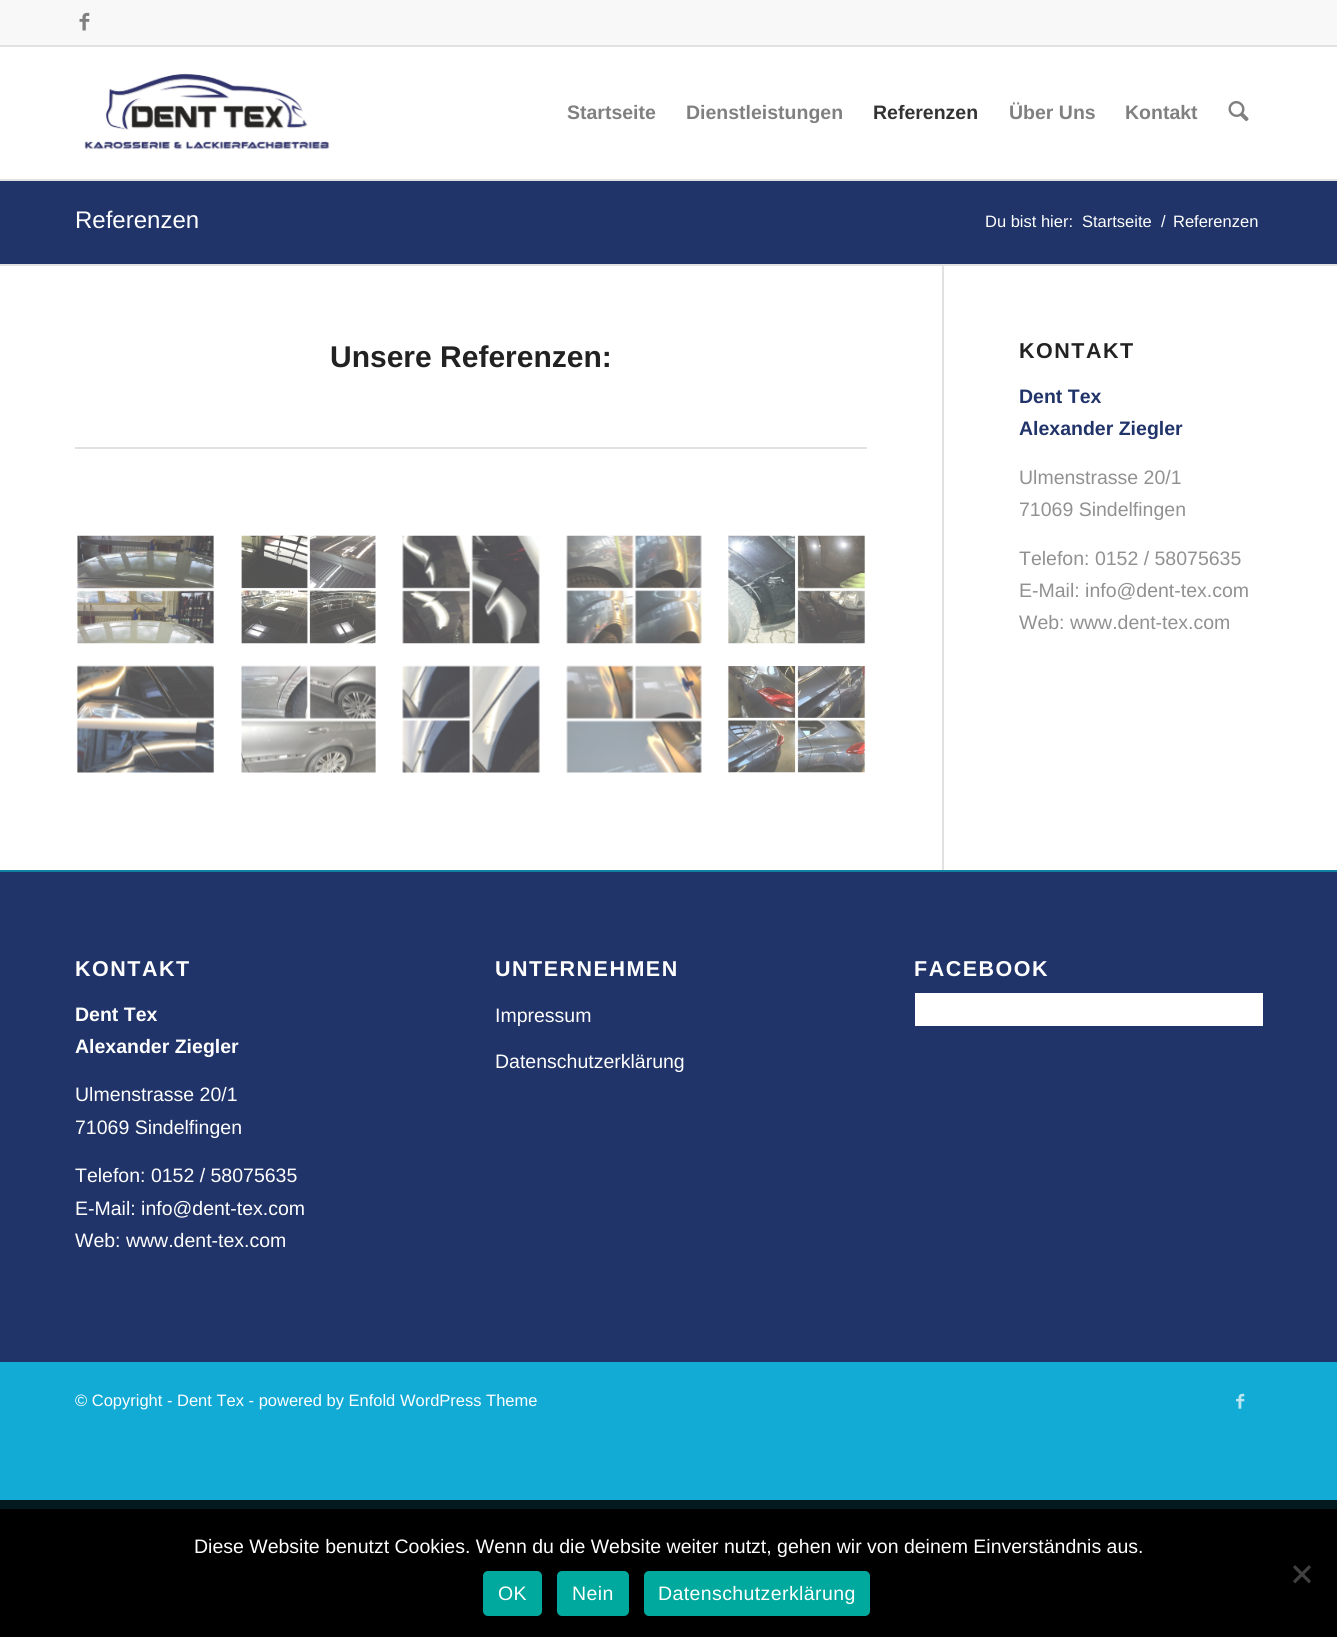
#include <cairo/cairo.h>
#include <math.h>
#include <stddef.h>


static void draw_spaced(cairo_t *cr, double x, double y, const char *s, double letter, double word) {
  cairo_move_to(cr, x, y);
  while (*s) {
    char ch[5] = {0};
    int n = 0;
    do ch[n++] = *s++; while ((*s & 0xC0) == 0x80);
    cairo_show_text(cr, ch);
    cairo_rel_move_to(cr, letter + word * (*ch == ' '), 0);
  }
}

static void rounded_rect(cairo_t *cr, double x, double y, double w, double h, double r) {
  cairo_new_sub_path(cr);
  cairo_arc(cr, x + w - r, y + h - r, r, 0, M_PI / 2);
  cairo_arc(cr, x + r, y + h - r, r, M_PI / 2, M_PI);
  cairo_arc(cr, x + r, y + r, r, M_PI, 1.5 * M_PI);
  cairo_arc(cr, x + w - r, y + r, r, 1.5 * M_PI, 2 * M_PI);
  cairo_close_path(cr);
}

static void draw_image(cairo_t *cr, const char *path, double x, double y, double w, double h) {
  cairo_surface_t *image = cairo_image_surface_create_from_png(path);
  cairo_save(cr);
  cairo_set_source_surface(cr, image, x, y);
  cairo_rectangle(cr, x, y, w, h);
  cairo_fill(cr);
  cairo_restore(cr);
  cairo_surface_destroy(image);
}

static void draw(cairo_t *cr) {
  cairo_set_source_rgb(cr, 17 / 255.0, 171 / 255.0, 214 / 255.0);
  cairo_paint(cr);
  cairo_set_source_rgb(cr, 1, 1, 1);
  cairo_rectangle(cr, 0, 266, 1337, 604);
  cairo_fill(cr);
  cairo_set_source_rgb(cr, 248 / 255.0, 248 / 255.0, 248 / 255.0);
  cairo_rectangle(cr, 0, 0, 1337, 45);
  cairo_fill(cr);
  cairo_set_source_rgb(cr, 225 / 255.0, 225 / 255.0, 225 / 255.0);
  cairo_rectangle(cr, 0, 45, 1337, 2);
  cairo_fill(cr);
  draw_image(cr, "images/1.png", 79, 12, 11, 19);
  cairo_set_source_rgb(cr, 1, 1, 1);
  cairo_rectangle(cr, 0, 47, 1337, 132);
  cairo_fill(cr);
  cairo_set_source_rgb(cr, 225 / 255.0, 225 / 255.0, 225 / 255.0);
  cairo_rectangle(cr, 0, 179, 1337, 2);
  cairo_fill(cr);
  draw_image(cr, "images/2.png", 84, 73, 246, 77);
  draw_image(cr, "images/3.png", 1228, 101, 21, 21);
  cairo_set_source_rgb(cr, 32 / 255.0, 52 / 255.0, 105 / 255.0);
  cairo_rectangle(cr, 0, 181, 1337, 83);
  cairo_fill(cr);
  cairo_set_source_rgb(cr, 225 / 255.0, 225 / 255.0, 225 / 255.0);
  cairo_rectangle(cr, 0, 264, 1337, 2);
  cairo_fill(cr);
  cairo_rectangle(cr, 942, 266, 2, 604);
  cairo_fill(cr);
  cairo_rectangle(cr, 75, 447, 792, 2);
  cairo_fill(cr);
  draw_image(cr, "images/4.png", 77, 535, 138, 109);
  draw_image(cr, "images/5.png", 241, 535, 135, 109);
  draw_image(cr, "images/6.png", 402, 535, 138, 109);
  draw_image(cr, "images/7.png", 566, 535, 136, 109);
  draw_image(cr, "images/8.png", 728, 535, 138, 109);
  draw_image(cr, "images/9.png", 76, 665, 139, 108);
  draw_image(cr, "images/10.png", 241, 665, 135, 108);
  draw_image(cr, "images/11.png", 402, 665, 138, 108);
  draw_image(cr, "images/12.png", 566, 665, 136, 108);
  draw_image(cr, "images/13.png", 727, 666, 139, 107);
  cairo_set_source_rgb(cr, 32 / 255.0, 52 / 255.0, 105 / 255.0);
  cairo_rectangle(cr, 0, 872, 1337, 490);
  cairo_fill(cr);
  cairo_set_source_rgb(cr, 15 / 255.0, 129 / 255.0, 161 / 255.0);
  cairo_rectangle(cr, 0, 870, 1337, 2);
  cairo_fill(cr);
  cairo_set_source_rgb(cr, 1, 1, 1);
  cairo_rectangle(cr, 915, 993, 348, 33);
  cairo_fill(cr);
  draw_image(cr, "images/14.png", 1236, 1393, 9, 16);
  cairo_set_source_rgb(cr, 3 / 255.0, 26 / 255.0, 32 / 255.0);
  cairo_rectangle(cr, 0, 1500, 1337, 9);
  cairo_fill(cr);
  cairo_set_source_rgb(cr, 0, 0, 0);
  cairo_rectangle(cr, 0, 1509, 1337, 128);
  cairo_fill(cr);
  cairo_set_source_rgb(cr, 64 / 255.0, 64 / 255.0, 64 / 255.0);
  cairo_new_path(cr);
  cairo_move_to(cr, 1309, 1565);
  cairo_line_to(cr, 1311, 1567.5);
  cairo_line_to(cr, 1295, 1583.5);
  cairo_line_to(cr, 1293, 1581);
  cairo_close_path(cr);
  cairo_fill(cr);
  cairo_new_path(cr);
  cairo_move_to(cr, 1293, 1567.5);
  cairo_line_to(cr, 1295, 1565);
  cairo_line_to(cr, 1311, 1581);
  cairo_line_to(cr, 1309, 1583.5);
  cairo_close_path(cr);
  cairo_fill(cr);
  cairo_set_source_rgb(cr, 0, 169 / 255.0, 157 / 255.0);
  rounded_rect(cr, 483, 1571, 59, 45, 5);
  cairo_fill(cr);
  rounded_rect(cr, 557, 1571, 72, 45, 5);
  cairo_fill(cr);
  rounded_rect(cr, 644, 1571, 226, 45, 5);
  cairo_fill(cr);
  cairo_select_font_face(cr, "Liberation Sans", CAIRO_FONT_SLANT_NORMAL, CAIRO_FONT_WEIGHT_BOLD);
  cairo_set_font_size(cr, 19.5);
  cairo_set_source_rgb(cr, 128 / 255.0, 128 / 255.0, 128 / 255.0);
  cairo_move_to(cr, 567, 119);
  cairo_show_text(cr, "Startseite");
  cairo_move_to(cr, 686, 119);
  cairo_show_text(cr, "Dienstleistungen");
  cairo_set_source_rgb(cr, 51 / 255.0, 51 / 255.0, 51 / 255.0);
  cairo_move_to(cr, 873, 119);
  cairo_show_text(cr, "Referenzen");
  cairo_set_source_rgb(cr, 128 / 255.0, 128 / 255.0, 128 / 255.0);
  cairo_move_to(cr, 1009, 119);
  cairo_show_text(cr, "Über Uns");
  cairo_move_to(cr, 1125, 119);
  cairo_show_text(cr, "Kontakt");
  cairo_select_font_face(cr, "Liberation Sans", CAIRO_FONT_SLANT_NORMAL, CAIRO_FONT_WEIGHT_NORMAL);
  cairo_set_font_size(cr, 24);
  cairo_set_source_rgb(cr, 1, 1, 1);
  cairo_move_to(cr, 75, 228);
  cairo_show_text(cr, "Referenzen");
  cairo_set_font_size(cr, 16.5);
  cairo_move_to(cr, 985, 227);
  cairo_show_text(cr, "Du bist hier:");
  cairo_move_to(cr, 1082, 227);
  cairo_show_text(cr, "Startseite");
  cairo_move_to(cr, 1161, 227);
  cairo_show_text(cr, "/");
  cairo_move_to(cr, 1173, 227);
  cairo_show_text(cr, "Referenzen");
  cairo_select_font_face(cr, "Liberation Sans", CAIRO_FONT_SLANT_NORMAL, CAIRO_FONT_WEIGHT_BOLD);
  cairo_set_font_size(cr, 30);
  cairo_set_source_rgb(cr, 34 / 255.0, 34 / 255.0, 34 / 255.0);
  cairo_move_to(cr, 330, 367);
  cairo_show_text(cr, "Unsere Referenzen:");
  cairo_set_font_size(cr, 21.5);
  draw_spaced(cr, 1019, 358, "KONTAKT", 1.5, 0);
  cairo_set_font_size(cr, 19.5);
  cairo_set_source_rgb(cr, 32 / 255.0, 52 / 255.0, 105 / 255.0);
  cairo_move_to(cr, 1019, 403);
  cairo_show_text(cr, "Dent Tex");
  cairo_move_to(cr, 1019, 435);
  cairo_show_text(cr, "Alexander Ziegler");
  cairo_select_font_face(cr, "Liberation Sans", CAIRO_FONT_SLANT_NORMAL, CAIRO_FONT_WEIGHT_NORMAL);
  cairo_set_source_rgb(cr, 145 / 255.0, 145 / 255.0, 145 / 255.0);
  cairo_move_to(cr, 1019, 484);
  cairo_show_text(cr, "Ulmenstrasse 20/1");
  cairo_move_to(cr, 1019, 516);
  cairo_show_text(cr, "71069 Sindelfingen");
  cairo_move_to(cr, 1019, 565);
  cairo_show_text(cr, "Telefon: 0152 / 58075635");
  cairo_move_to(cr, 1019, 597);
  cairo_show_text(cr, "E-Mail: info@dent-tex.com");
  cairo_move_to(cr, 1019, 629);
  cairo_show_text(cr, "Web: www.dent-tex.com");
  cairo_select_font_face(cr, "Liberation Sans", CAIRO_FONT_SLANT_NORMAL, CAIRO_FONT_WEIGHT_BOLD);
  cairo_set_font_size(cr, 21.5);
  cairo_set_source_rgb(cr, 1, 1, 1);
  draw_spaced(cr, 75, 976, "KONTAKT", 1.5, 0);
  cairo_set_font_size(cr, 19.5);
  cairo_move_to(cr, 75, 1021);
  cairo_show_text(cr, "Dent Tex");
  cairo_move_to(cr, 75, 1053);
  cairo_show_text(cr, "Alexander Ziegler");
  cairo_select_font_face(cr, "Liberation Sans", CAIRO_FONT_SLANT_NORMAL, CAIRO_FONT_WEIGHT_NORMAL);
  cairo_move_to(cr, 75, 1101);
  cairo_show_text(cr, "Ulmenstrasse 20/1");
  cairo_move_to(cr, 75, 1134);
  cairo_show_text(cr, "71069 Sindelfingen");
  cairo_move_to(cr, 75, 1182);
  cairo_show_text(cr, "Telefon: 0152 / 58075635");
  cairo_move_to(cr, 75, 1215);
  cairo_show_text(cr, "E-Mail: info@dent-tex.com");
  cairo_move_to(cr, 75, 1247);
  cairo_show_text(cr, "Web: www.dent-tex.com");
  cairo_select_font_face(cr, "Liberation Sans", CAIRO_FONT_SLANT_NORMAL, CAIRO_FONT_WEIGHT_BOLD);
  cairo_set_font_size(cr, 21.5);
  draw_spaced(cr, 495, 976, "UNTERNEHMEN", 1.5, 0);
  cairo_select_font_face(cr, "Liberation Sans", CAIRO_FONT_SLANT_NORMAL, CAIRO_FONT_WEIGHT_NORMAL);
  cairo_set_font_size(cr, 19.5);
  cairo_move_to(cr, 495, 1022);
  cairo_show_text(cr, "Impressum");
  cairo_move_to(cr, 495, 1068);
  cairo_show_text(cr, "Datenschutzerklärung");
  cairo_select_font_face(cr, "Liberation Sans", CAIRO_FONT_SLANT_NORMAL, CAIRO_FONT_WEIGHT_BOLD);
  cairo_set_font_size(cr, 21.5);
  draw_spaced(cr, 914, 976, "FACEBOOK", 1.5, 0);
  cairo_select_font_face(cr, "Liberation Sans", CAIRO_FONT_SLANT_NORMAL, CAIRO_FONT_WEIGHT_NORMAL);
  cairo_set_font_size(cr, 16.5);
  cairo_move_to(cr, 75, 1406);
  cairo_show_text(cr, "© Copyright - Dent Tex - powered by Enfold WordPress Theme");
  cairo_set_font_size(cr, 19.5);
  cairo_move_to(cr, 194, 1553);
  cairo_show_text(cr, "Diese Website benutzt Cookies. Wenn du die Website weiter nutzt, gehen wir von deinem Einverständnis aus.");
  draw_spaced(cr, 498, 1600, "OK", 0.4, 0);
  draw_spaced(cr, 572, 1600, "Nein", 0.4, 0);
  draw_spaced(cr, 658, 1600, "Datenschutzerklärung", 0.4, 0);
}

int main(void) {
  cairo_surface_t *surface = cairo_image_surface_create(CAIRO_FORMAT_RGB24, 1337, 1637);
  cairo_t *cr = cairo_create(surface);
  cairo_font_options_t *options = cairo_font_options_create();
  cairo_font_options_set_hint_metrics(options, CAIRO_HINT_METRICS_OFF);
  cairo_font_options_set_hint_style(options, CAIRO_HINT_STYLE_NONE);
  cairo_set_font_options(cr, options);
  cairo_set_miter_limit(cr, 4);
  draw(cr);
  cairo_surface_write_to_png(surface, "out.png");
  cairo_font_options_destroy(options);
  cairo_destroy(cr);
  cairo_surface_destroy(surface);
  return 0;
}
